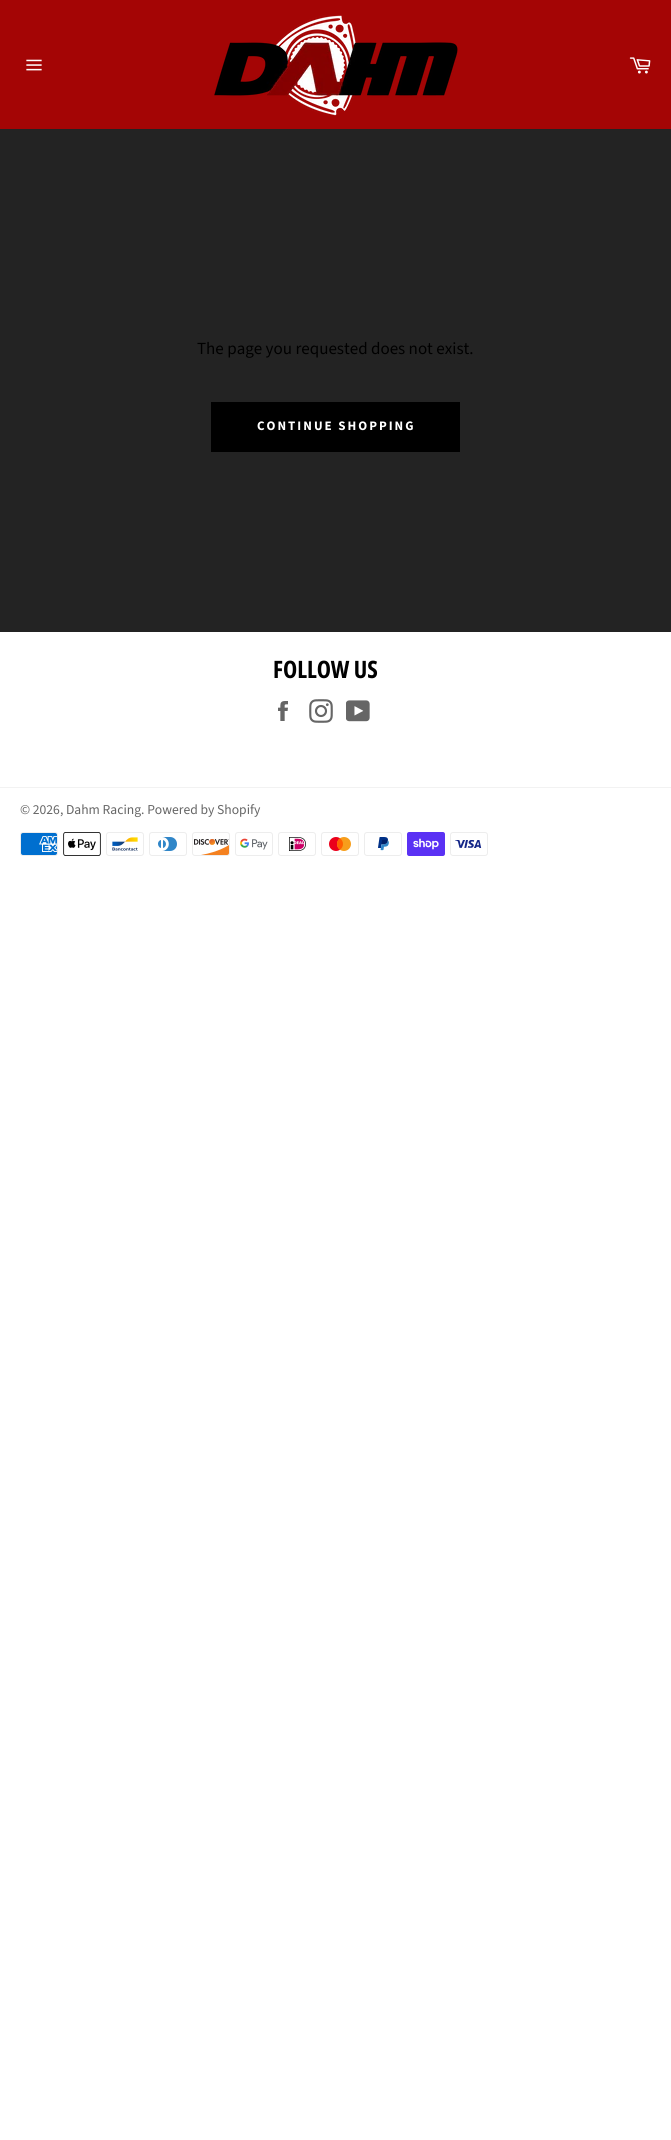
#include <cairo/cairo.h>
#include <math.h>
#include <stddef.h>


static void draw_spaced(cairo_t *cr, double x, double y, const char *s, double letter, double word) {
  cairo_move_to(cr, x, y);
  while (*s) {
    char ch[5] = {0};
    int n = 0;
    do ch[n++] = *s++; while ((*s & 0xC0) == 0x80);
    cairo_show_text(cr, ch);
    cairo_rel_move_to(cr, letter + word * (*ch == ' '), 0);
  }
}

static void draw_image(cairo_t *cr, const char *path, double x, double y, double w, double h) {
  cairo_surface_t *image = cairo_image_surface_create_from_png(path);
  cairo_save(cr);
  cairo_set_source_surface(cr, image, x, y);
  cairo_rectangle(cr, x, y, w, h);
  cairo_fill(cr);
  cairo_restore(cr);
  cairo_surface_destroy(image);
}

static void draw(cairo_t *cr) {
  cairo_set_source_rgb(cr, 1, 1, 1);
  cairo_paint(cr);
  cairo_set_source_rgb(cr, 35 / 255.0, 35 / 255.0, 35 / 255.0);
  cairo_rectangle(cr, 0, 129, 671, 503);
  cairo_fill(cr);
  cairo_set_source_rgb(cr, 164 / 255.0, 5 / 255.0, 5 / 255.0);
  cairo_rectangle(cr, 0, 0, 671, 129);
  cairo_fill(cr);
  draw_image(cr, "images/1.png", 26, 59, 16, 12);
  draw_image(cr, "images/2.png", 214, 15, 244, 101);
  draw_image(cr, "images/3.png", 629, 57, 22, 17);
  cairo_set_source_rgb(cr, 0, 0, 0);
  cairo_rectangle(cr, 211, 402, 249, 50);
  cairo_fill(cr);
  draw_image(cr, "images/4.png", 278, 701, 10, 20);
  draw_image(cr, "images/5.png", 309, 699, 24, 24);
  draw_image(cr, "images/6.png", 346, 700, 24, 22);
  cairo_set_source_rgb(cr, 242 / 255.0, 242 / 255.0, 242 / 255.0);
  cairo_rectangle(cr, 0, 787, 671, 1);
  cairo_fill(cr);
  draw_image(cr, "images/7.png", 20, 832, 38, 24);
  draw_image(cr, "images/8.png", 63, 832, 38, 24);
  draw_image(cr, "images/9.png", 106, 832, 38, 24);
  draw_image(cr, "images/10.png", 149, 832, 38, 24);
  draw_image(cr, "images/11.png", 192, 832, 38, 24);
  draw_image(cr, "images/12.png", 235, 832, 38, 24);
  draw_image(cr, "images/13.png", 278, 832, 38, 24);
  draw_image(cr, "images/14.png", 321, 832, 38, 24);
  draw_image(cr, "images/15.png", 364, 832, 38, 24);
  draw_image(cr, "images/16.png", 407, 832, 38, 24);
  draw_image(cr, "images/17.png", 450, 832, 38, 24);
  cairo_select_font_face(cr, "Source Sans Pro", CAIRO_FONT_SLANT_NORMAL, CAIRO_FONT_WEIGHT_NORMAL);
  cairo_set_font_size(cr, 17);
  cairo_set_source_rgb(cr, 0, 0, 0);
  cairo_move_to(cr, 197, 354);
  cairo_show_text(cr, "The page you requested does not exist.");
  cairo_select_font_face(cr, "Source Sans Pro", CAIRO_FONT_SLANT_NORMAL, CAIRO_FONT_WEIGHT_BOLD);
  cairo_set_font_size(cr, 13);
  cairo_set_source_rgb(cr, 1, 1, 1);
  draw_spaced(cr, 257, 430, "CONTINUE SHOPPING", 2, 0);
  cairo_select_font_face(cr, "Open Sans Condensed", CAIRO_FONT_SLANT_NORMAL, CAIRO_FONT_WEIGHT_BOLD);
  cairo_set_font_size(cr, 24);
  cairo_set_source_rgb(cr, 0, 0, 0);
  cairo_move_to(cr, 273, 678);
  cairo_show_text(cr, "FOLLOW US");
  cairo_select_font_face(cr, "Source Sans Pro", CAIRO_FONT_SLANT_NORMAL, CAIRO_FONT_WEIGHT_NORMAL);
  cairo_set_font_size(cr, 13.6);
  cairo_set_source_rgb(cr, 102 / 255.0, 102 / 255.0, 102 / 255.0);
  cairo_move_to(cr, 20, 814);
  cairo_show_text(cr, "© 2026, Dahm Racing. Powered by Shopify");
}

int main(void) {
  cairo_surface_t *surface = cairo_image_surface_create(CAIRO_FORMAT_RGB24, 671, 2140);
  cairo_t *cr = cairo_create(surface);
  cairo_font_options_t *options = cairo_font_options_create();
  cairo_font_options_set_hint_metrics(options, CAIRO_HINT_METRICS_OFF);
  cairo_font_options_set_hint_style(options, CAIRO_HINT_STYLE_NONE);
  cairo_set_font_options(cr, options);
  cairo_set_miter_limit(cr, 4);
  draw(cr);
  cairo_surface_write_to_png(surface, "out.png");
  cairo_font_options_destroy(options);
  cairo_destroy(cr);
  cairo_surface_destroy(surface);
  return 0;
}
